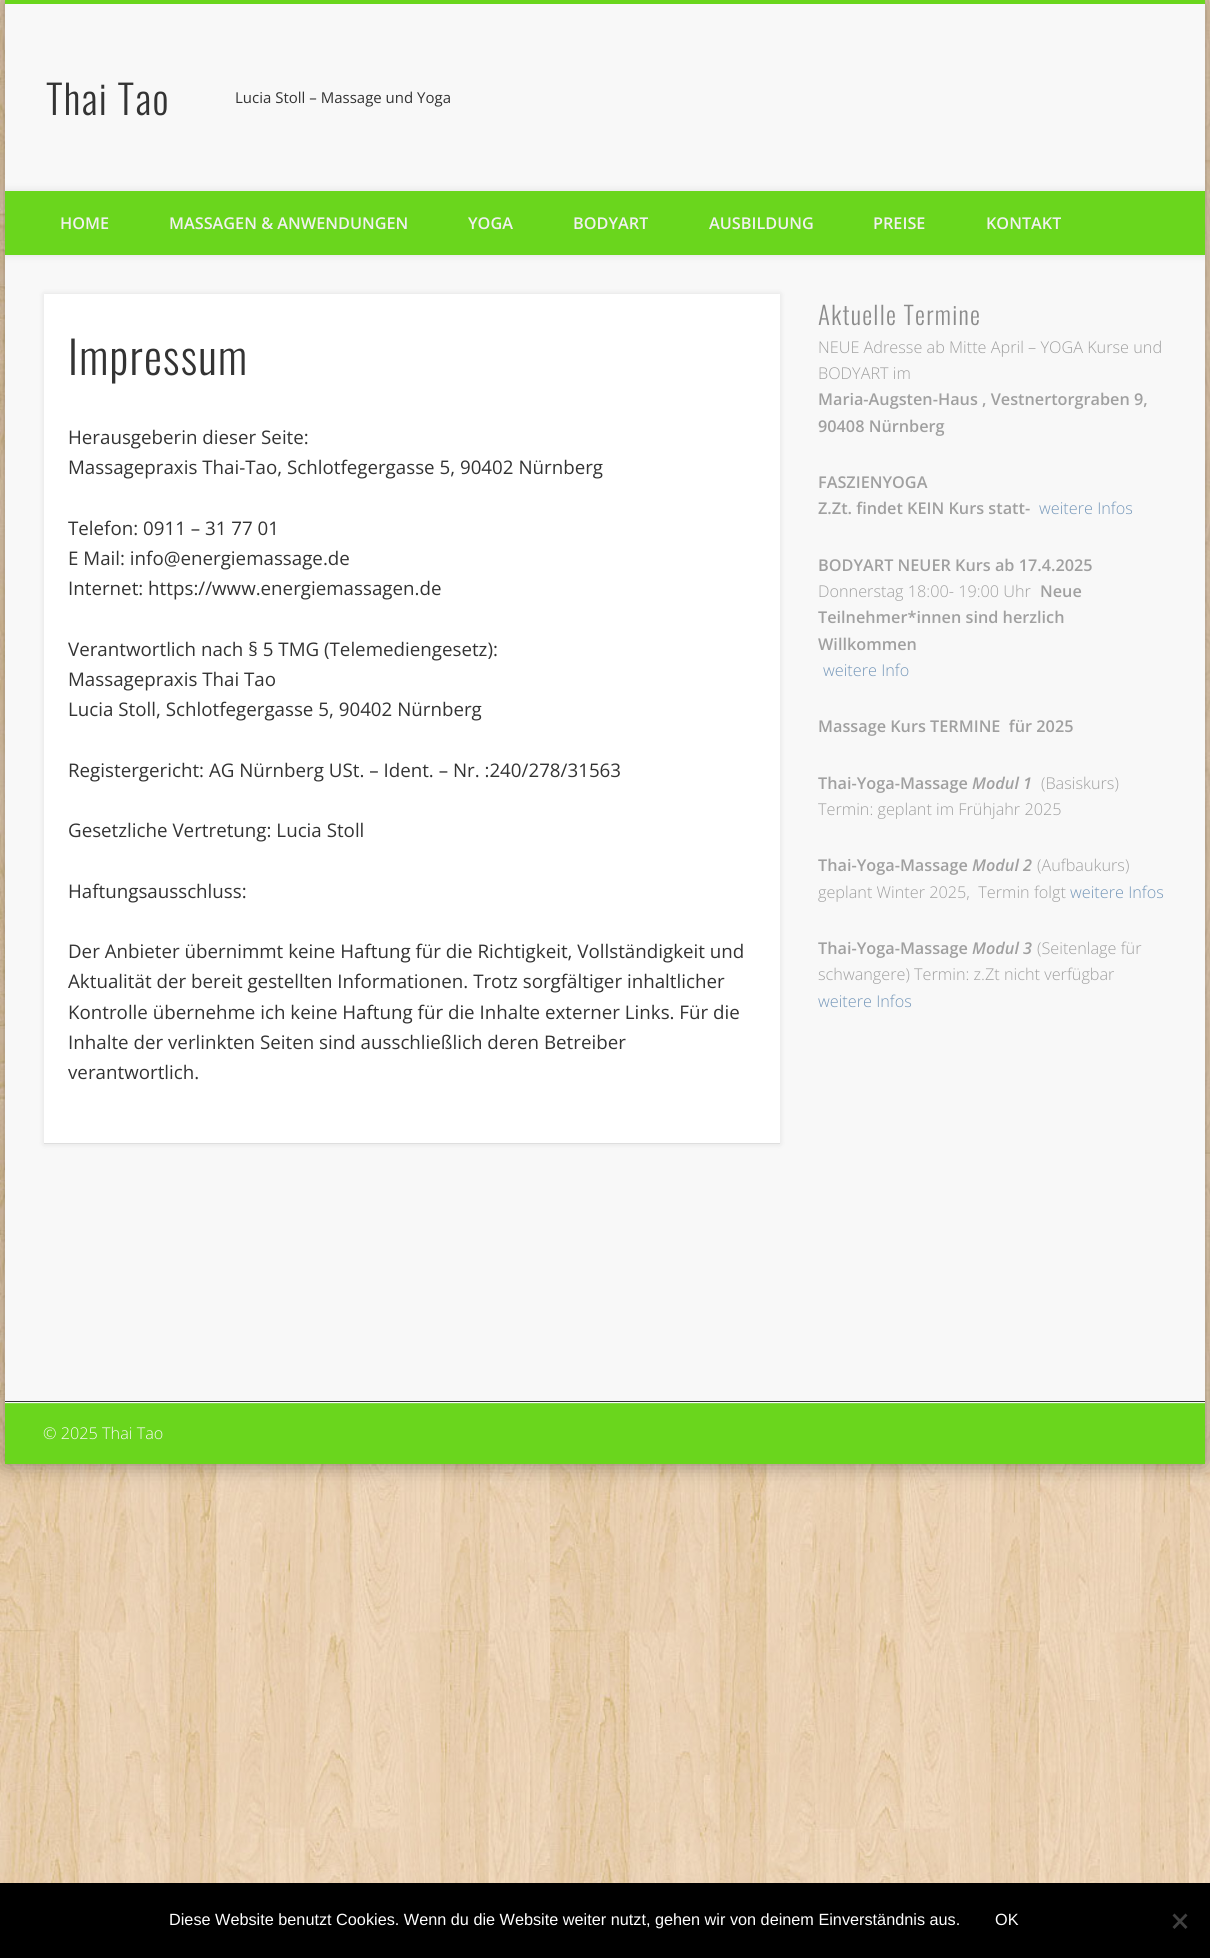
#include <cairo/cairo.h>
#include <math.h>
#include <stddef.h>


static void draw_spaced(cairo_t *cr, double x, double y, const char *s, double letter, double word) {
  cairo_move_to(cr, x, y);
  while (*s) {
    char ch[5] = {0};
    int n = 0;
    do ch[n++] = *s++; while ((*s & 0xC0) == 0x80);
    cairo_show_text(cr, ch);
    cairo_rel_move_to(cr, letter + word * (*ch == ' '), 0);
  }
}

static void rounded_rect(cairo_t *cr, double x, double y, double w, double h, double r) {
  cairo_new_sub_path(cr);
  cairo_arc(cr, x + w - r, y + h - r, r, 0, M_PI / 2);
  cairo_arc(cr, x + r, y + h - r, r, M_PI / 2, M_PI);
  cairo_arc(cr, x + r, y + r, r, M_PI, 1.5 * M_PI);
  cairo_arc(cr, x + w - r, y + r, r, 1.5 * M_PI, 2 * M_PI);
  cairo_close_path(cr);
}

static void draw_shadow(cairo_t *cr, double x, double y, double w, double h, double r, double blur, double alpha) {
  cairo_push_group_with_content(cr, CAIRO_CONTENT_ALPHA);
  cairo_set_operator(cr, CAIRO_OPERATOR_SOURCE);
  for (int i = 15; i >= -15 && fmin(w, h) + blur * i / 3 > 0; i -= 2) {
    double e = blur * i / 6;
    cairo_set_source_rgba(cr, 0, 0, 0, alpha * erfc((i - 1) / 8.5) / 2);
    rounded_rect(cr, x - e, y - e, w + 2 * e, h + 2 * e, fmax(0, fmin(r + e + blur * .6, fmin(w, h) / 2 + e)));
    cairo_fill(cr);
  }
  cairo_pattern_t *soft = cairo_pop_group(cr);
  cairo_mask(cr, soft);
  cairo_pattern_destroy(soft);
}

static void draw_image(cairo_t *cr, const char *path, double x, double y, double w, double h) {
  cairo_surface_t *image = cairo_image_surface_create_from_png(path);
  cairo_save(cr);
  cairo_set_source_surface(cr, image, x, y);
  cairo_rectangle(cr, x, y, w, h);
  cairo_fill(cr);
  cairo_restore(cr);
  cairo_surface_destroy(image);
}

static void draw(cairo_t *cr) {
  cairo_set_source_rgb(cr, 1, 1, 1);
  cairo_paint(cr);
  draw_image(cr, "images/1.png", 0, 0, 1210, 1883);
  cairo_set_source_rgb(cr, 0, 0, 0);
  draw_shadow(cr, 5, 0, 1200, 1464, 0, 11, 0.4);
  cairo_set_source_rgb(cr, 248 / 255.0, 248 / 255.0, 248 / 255.0);
  cairo_rectangle(cr, 5, 4, 1200, 1399);
  cairo_fill(cr);
  cairo_set_source_rgb(cr, 106 / 255.0, 214 / 255.0, 29 / 255.0);
  cairo_rectangle(cr, 5, 0, 1200, 4);
  cairo_fill(cr);
  cairo_save(cr);
  cairo_rectangle(cr, 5, 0, 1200, 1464);
  cairo_clip(cr);
  cairo_set_source_rgb(cr, 0, 0, 0);
  draw_shadow(cr, 5, 191, 1200, 64, 0, 4.5, 0.1);
  cairo_restore(cr);
  cairo_rectangle(cr, 5, 191, 1200, 64);
  cairo_fill(cr);
  cairo_set_source_rgb(cr, 0, 0, 0);
  draw_shadow(cr, 44, 294, 736, 850, 0, 3, 0.1);
  cairo_set_source_rgb(cr, 1, 1, 1);
  cairo_rectangle(cr, 44, 294, 736, 849);
  cairo_fill(cr);
  cairo_set_source_rgb(cr, 222 / 255.0, 222 / 255.0, 222 / 255.0);
  cairo_rectangle(cr, 44, 1143, 736, 1);
  cairo_fill(cr);
  cairo_set_source_rgb(cr, 52 / 255.0, 52 / 255.0, 52 / 255.0);
  cairo_rectangle(cr, 5, 1401, 1200, 1);
  cairo_fill(cr);
  cairo_set_source_rgb(cr, 106 / 255.0, 214 / 255.0, 29 / 255.0);
  cairo_rectangle(cr, 5, 1404, 1200, 60);
  cairo_fill(cr);
  cairo_set_source_rgb(cr, 128 / 255.0, 220 / 255.0, 62 / 255.0);
  cairo_rectangle(cr, 5, 1403, 1200, 1);
  cairo_fill(cr);
  cairo_set_source_rgb(cr, 0, 0, 0);
  cairo_rectangle(cr, 0, 1883, 1210, 75);
  cairo_fill(cr);
  cairo_set_source_rgb(cr, 64 / 255.0, 64 / 255.0, 64 / 255.0);
  cairo_new_path(cr);
  cairo_move_to(cr, 1185.5, 1913.5);
  cairo_line_to(cr, 1187.5, 1915.5);
  cairo_line_to(cr, 1174.5, 1929);
  cairo_line_to(cr, 1172.5, 1927);
  cairo_close_path(cr);
  cairo_fill(cr);
  cairo_new_path(cr);
  cairo_move_to(cr, 1172.5, 1915.5);
  cairo_line_to(cr, 1174.5, 1913.5);
  cairo_line_to(cr, 1187.5, 1927);
  cairo_line_to(cr, 1185.5, 1929);
  cairo_close_path(cr);
  cairo_fill(cr);
  cairo_select_font_face(cr, "Oswald Light", CAIRO_FONT_SLANT_NORMAL, CAIRO_FONT_WEIGHT_NORMAL);
  cairo_set_font_size(cr, 40);
  cairo_set_source_rgb(cr, 51 / 255.0, 51 / 255.0, 51 / 255.0);
  draw_spaced(cr, 46, 115, "Thai Tao", 1.25, 0);
  cairo_select_font_face(cr, "Open Sans", CAIRO_FONT_SLANT_NORMAL, CAIRO_FONT_WEIGHT_NORMAL);
  cairo_set_font_size(cr, 15);
  cairo_move_to(cr, 235, 103);
  cairo_show_text(cr, "Lucia Stoll – Massage und Yoga");
  cairo_select_font_face(cr, "Open Sans SemiBold", CAIRO_FONT_SLANT_NORMAL, CAIRO_FONT_WEIGHT_NORMAL);
  cairo_set_font_size(cr, 16.25);
  cairo_set_source_rgb(cr, 240 / 255.0, 240 / 255.0, 240 / 255.0);
  cairo_move_to(cr, 60, 229);
  cairo_show_text(cr, "HOME");
  cairo_move_to(cr, 169, 229);
  cairo_show_text(cr, "MASSAGEN & ANWENDUNGEN");
  cairo_move_to(cr, 468, 229);
  cairo_show_text(cr, "YOGA");
  cairo_move_to(cr, 573, 229);
  cairo_show_text(cr, "BODYART");
  cairo_move_to(cr, 709, 229);
  cairo_show_text(cr, "AUSBILDUNG");
  cairo_move_to(cr, 873, 229);
  cairo_show_text(cr, "PREISE");
  cairo_move_to(cr, 986, 229);
  cairo_show_text(cr, "KONTAKT");
  cairo_select_font_face(cr, "Oswald Light", CAIRO_FONT_SLANT_NORMAL, CAIRO_FONT_WEIGHT_NORMAL);
  cairo_set_font_size(cr, 45);
  cairo_set_source_rgb(cr, 51 / 255.0, 51 / 255.0, 51 / 255.0);
  draw_spaced(cr, 68, 375, "Impressum", 1.25, 0);
  cairo_select_font_face(cr, "Open Sans", CAIRO_FONT_SLANT_NORMAL, CAIRO_FONT_WEIGHT_NORMAL);
  cairo_set_font_size(cr, 18.75);
  cairo_move_to(cr, 68, 444);
  cairo_show_text(cr, "Herausgeberin dieser Seite:");
  cairo_move_to(cr, 68, 474);
  cairo_show_text(cr, "Massagepraxis Thai-Tao, Schlotfegergasse 5, 90402 Nürnberg");
  cairo_move_to(cr, 68, 535);
  cairo_show_text(cr, "Telefon: 0911 – 31 77 01");
  cairo_move_to(cr, 68, 565);
  cairo_show_text(cr, "E Mail: info@energiemassage.de");
  cairo_move_to(cr, 68, 595);
  cairo_show_text(cr, "Internet: https://www.energiemassagen.de");
  cairo_move_to(cr, 68, 656);
  cairo_show_text(cr, "Verantwortlich nach § 5 TMG (Telemediengesetz):");
  cairo_move_to(cr, 68, 686);
  cairo_show_text(cr, "Massagepraxis Thai Tao");
  cairo_move_to(cr, 68, 716);
  cairo_show_text(cr, "Lucia Stoll, Schlotfegergasse 5, 90402 Nürnberg");
  cairo_move_to(cr, 68, 777);
  cairo_show_text(cr, "Registergericht: AG Nürnberg USt. – Ident. – Nr. :240/278/31563");
  cairo_move_to(cr, 68, 837);
  cairo_show_text(cr, "Gesetzliche Vertretung: Lucia Stoll");
  cairo_move_to(cr, 68, 898);
  cairo_show_text(cr, "Haftungsausschluss:");
  cairo_move_to(cr, 68, 958);
  cairo_show_text(cr, "Der Anbieter übernimmt keine Haftung für die Richtigkeit, Vollständigkeit und");
  cairo_move_to(cr, 68, 988);
  cairo_show_text(cr, "Aktualität der bereit gestellten Informationen. Trotz sorgfältiger inhaltlicher");
  cairo_move_to(cr, 68, 1019);
  cairo_show_text(cr, "Kontrolle übernehme ich keine Haftung für die Inhalte externer Links. Für die");
  cairo_move_to(cr, 68, 1049);
  cairo_show_text(cr, "Inhalte der verlinkten Seiten sind ausschließlich deren Betreiber");
  cairo_move_to(cr, 68, 1079);
  cairo_show_text(cr, "verantwortlich.");
  cairo_select_font_face(cr, "Oswald Light", CAIRO_FONT_SLANT_NORMAL, CAIRO_FONT_WEIGHT_NORMAL);
  cairo_set_font_size(cr, 25);
  cairo_set_source_rgb(cr, 140 / 255.0, 140 / 255.0, 140 / 255.0);
  draw_spaced(cr, 818, 325, "Aktuelle Termine", 1.25, 0);
  cairo_select_font_face(cr, "Open Sans Light", CAIRO_FONT_SLANT_NORMAL, CAIRO_FONT_WEIGHT_NORMAL);
  cairo_set_font_size(cr, 16.25);
  cairo_set_source_rgb(cr, 160 / 255.0, 160 / 255.0, 160 / 255.0);
  cairo_move_to(cr, 818, 353);
  cairo_show_text(cr, "NEUE Adresse ab Mitte April – YOGA Kurse und");
  cairo_move_to(cr, 818, 379);
  cairo_show_text(cr, "BODYART im");
  cairo_select_font_face(cr, "Open Sans SemiBold", CAIRO_FONT_SLANT_NORMAL, CAIRO_FONT_WEIGHT_NORMAL);
  cairo_move_to(cr, 818, 405);
  cairo_show_text(cr, "Maria-Augsten-Haus , Vestnertorgraben 9,");
  cairo_move_to(cr, 818, 432);
  cairo_show_text(cr, "90408 Nürnberg");
  cairo_move_to(cr, 818, 488);
  cairo_show_text(cr, "FASZIENYOGA");
  cairo_move_to(cr, 818, 514);
  cairo_show_text(cr, "Z.Zt. findet KEIN Kurs statt-");
  cairo_select_font_face(cr, "Open Sans Light", CAIRO_FONT_SLANT_NORMAL, CAIRO_FONT_WEIGHT_NORMAL);
  cairo_set_source_rgb(cr, 117 / 255.0, 151 / 255.0, 185 / 255.0);
  cairo_move_to(cr, 1039, 514);
  cairo_show_text(cr, "weitere Infos");
  cairo_select_font_face(cr, "Open Sans SemiBold", CAIRO_FONT_SLANT_NORMAL, CAIRO_FONT_WEIGHT_NORMAL);
  cairo_set_source_rgb(cr, 160 / 255.0, 160 / 255.0, 160 / 255.0);
  cairo_move_to(cr, 818, 571);
  cairo_show_text(cr, "BODYART NEUER Kurs ab 17.4.2025");
  cairo_select_font_face(cr, "Open Sans Light", CAIRO_FONT_SLANT_NORMAL, CAIRO_FONT_WEIGHT_NORMAL);
  cairo_move_to(cr, 818, 597);
  cairo_show_text(cr, "Donnerstag 18:00- 19:00 Uhr");
  cairo_select_font_face(cr, "Open Sans SemiBold", CAIRO_FONT_SLANT_NORMAL, CAIRO_FONT_WEIGHT_NORMAL);
  cairo_move_to(cr, 1040, 597);
  cairo_show_text(cr, "Neue");
  cairo_move_to(cr, 818, 623);
  cairo_show_text(cr, "Teilnehmer*innen sind herzlich");
  cairo_move_to(cr, 818, 650);
  cairo_show_text(cr, "Willkommen");
  cairo_select_font_face(cr, "Open Sans Light", CAIRO_FONT_SLANT_NORMAL, CAIRO_FONT_WEIGHT_NORMAL);
  cairo_set_source_rgb(cr, 117 / 255.0, 151 / 255.0, 185 / 255.0);
  cairo_move_to(cr, 823, 676);
  cairo_show_text(cr, "weitere Info");
  cairo_select_font_face(cr, "Open Sans SemiBold", CAIRO_FONT_SLANT_NORMAL, CAIRO_FONT_WEIGHT_NORMAL);
  cairo_set_source_rgb(cr, 160 / 255.0, 160 / 255.0, 160 / 255.0);
  cairo_move_to(cr, 818, 732);
  cairo_show_text(cr, "Massage Kurs TERMINE  für 2025");
  cairo_move_to(cr, 818, 789);
  cairo_show_text(cr, "Thai-Yoga-Massage");
  cairo_select_font_face(cr, "Open Sans SemiBold", CAIRO_FONT_SLANT_ITALIC, CAIRO_FONT_WEIGHT_NORMAL);
  cairo_move_to(cr, 972, 789);
  cairo_show_text(cr, "Modul 1");
  cairo_select_font_face(cr, "Open Sans Light", CAIRO_FONT_SLANT_NORMAL, CAIRO_FONT_WEIGHT_NORMAL);
  cairo_move_to(cr, 1041, 789);
  cairo_show_text(cr, "(Basiskurs)");
  cairo_move_to(cr, 818, 815);
  cairo_show_text(cr, "Termin: geplant im Frühjahr 2025");
  cairo_select_font_face(cr, "Open Sans SemiBold", CAIRO_FONT_SLANT_NORMAL, CAIRO_FONT_WEIGHT_NORMAL);
  cairo_move_to(cr, 818, 871);
  cairo_show_text(cr, "Thai-Yoga-Massage");
  cairo_select_font_face(cr, "Open Sans SemiBold", CAIRO_FONT_SLANT_ITALIC, CAIRO_FONT_WEIGHT_NORMAL);
  cairo_move_to(cr, 972, 871);
  cairo_show_text(cr, "Modul 2");
  cairo_select_font_face(cr, "Open Sans Light", CAIRO_FONT_SLANT_NORMAL, CAIRO_FONT_WEIGHT_NORMAL);
  cairo_move_to(cr, 1037, 871);
  cairo_show_text(cr, "(Aufbaukurs)");
  cairo_move_to(cr, 818, 898);
  cairo_show_text(cr, "geplant Winter 2025,  Termin folgt");
  cairo_set_source_rgb(cr, 117 / 255.0, 151 / 255.0, 185 / 255.0);
  cairo_move_to(cr, 1070, 898);
  cairo_show_text(cr, "weitere Infos");
  cairo_select_font_face(cr, "Open Sans SemiBold", CAIRO_FONT_SLANT_NORMAL, CAIRO_FONT_WEIGHT_NORMAL);
  cairo_set_source_rgb(cr, 160 / 255.0, 160 / 255.0, 160 / 255.0);
  cairo_move_to(cr, 818, 954);
  cairo_show_text(cr, "Thai-Yoga-Massage");
  cairo_select_font_face(cr, "Open Sans SemiBold", CAIRO_FONT_SLANT_ITALIC, CAIRO_FONT_WEIGHT_NORMAL);
  cairo_move_to(cr, 972, 954);
  cairo_show_text(cr, "Modul 3");
  cairo_select_font_face(cr, "Open Sans Light", CAIRO_FONT_SLANT_NORMAL, CAIRO_FONT_WEIGHT_NORMAL);
  cairo_move_to(cr, 1037, 954);
  cairo_show_text(cr, "(Seitenlage für");
  cairo_move_to(cr, 818, 980);
  cairo_show_text(cr, "schwangere) Termin: z.Zt nicht verfügbar");
  cairo_set_source_rgb(cr, 117 / 255.0, 151 / 255.0, 185 / 255.0);
  cairo_move_to(cr, 818, 1007);
  cairo_show_text(cr, "weitere Infos");
  cairo_set_source_rgb(cr, 247 / 255.0, 247 / 255.0, 247 / 255.0);
  cairo_move_to(cr, 43, 1439);
  cairo_show_text(cr, "© 2025 Thai Tao");
  cairo_select_font_face(cr, "Liberation Sans", CAIRO_FONT_SLANT_NORMAL, CAIRO_FONT_WEIGHT_NORMAL);
  cairo_set_source_rgb(cr, 1, 1, 1);
  cairo_move_to(cr, 169, 1925);
  cairo_show_text(cr, "Diese Website benutzt Cookies. Wenn du die Website weiter nutzt, gehen wir von deinem Einverständnis aus.");
  cairo_move_to(cr, 995, 1925);
  cairo_show_text(cr, "OK");
}

int main(void) {
  cairo_surface_t *surface = cairo_image_surface_create(CAIRO_FORMAT_RGB24, 1210, 1958);
  cairo_t *cr = cairo_create(surface);
  cairo_font_options_t *options = cairo_font_options_create();
  cairo_font_options_set_hint_metrics(options, CAIRO_HINT_METRICS_OFF);
  cairo_font_options_set_hint_style(options, CAIRO_HINT_STYLE_NONE);
  cairo_set_font_options(cr, options);
  cairo_set_miter_limit(cr, 4);
  draw(cr);
  cairo_surface_write_to_png(surface, "out.png");
  cairo_font_options_destroy(options);
  cairo_destroy(cr);
  cairo_surface_destroy(surface);
  return 0;
}
